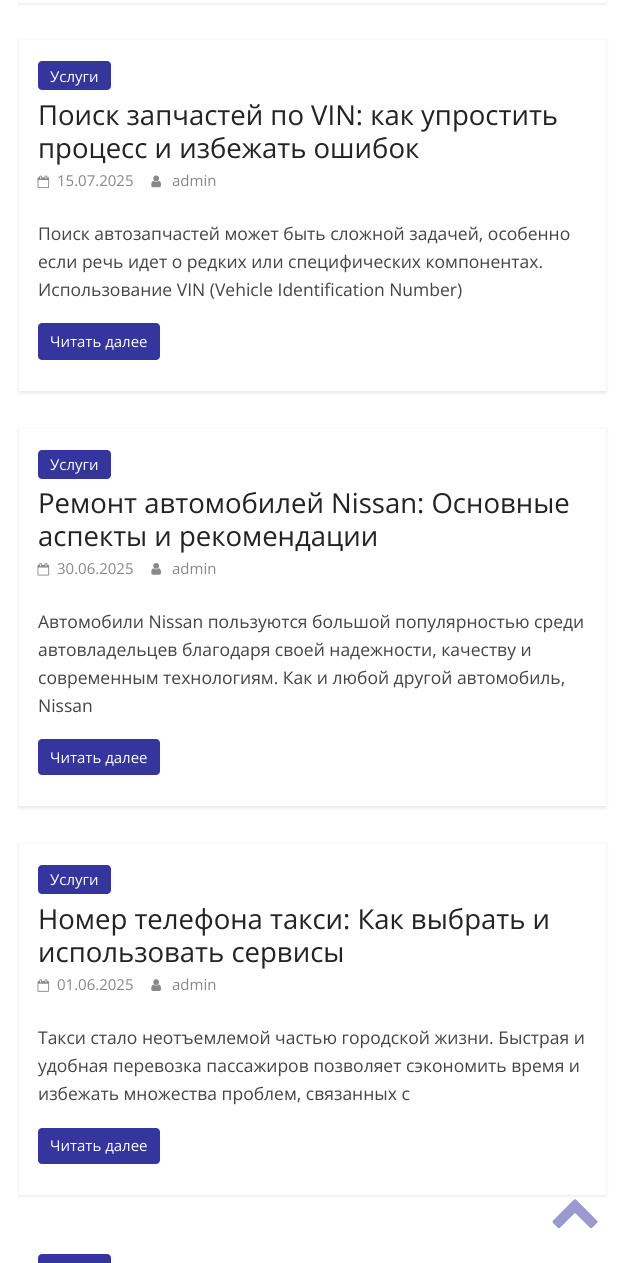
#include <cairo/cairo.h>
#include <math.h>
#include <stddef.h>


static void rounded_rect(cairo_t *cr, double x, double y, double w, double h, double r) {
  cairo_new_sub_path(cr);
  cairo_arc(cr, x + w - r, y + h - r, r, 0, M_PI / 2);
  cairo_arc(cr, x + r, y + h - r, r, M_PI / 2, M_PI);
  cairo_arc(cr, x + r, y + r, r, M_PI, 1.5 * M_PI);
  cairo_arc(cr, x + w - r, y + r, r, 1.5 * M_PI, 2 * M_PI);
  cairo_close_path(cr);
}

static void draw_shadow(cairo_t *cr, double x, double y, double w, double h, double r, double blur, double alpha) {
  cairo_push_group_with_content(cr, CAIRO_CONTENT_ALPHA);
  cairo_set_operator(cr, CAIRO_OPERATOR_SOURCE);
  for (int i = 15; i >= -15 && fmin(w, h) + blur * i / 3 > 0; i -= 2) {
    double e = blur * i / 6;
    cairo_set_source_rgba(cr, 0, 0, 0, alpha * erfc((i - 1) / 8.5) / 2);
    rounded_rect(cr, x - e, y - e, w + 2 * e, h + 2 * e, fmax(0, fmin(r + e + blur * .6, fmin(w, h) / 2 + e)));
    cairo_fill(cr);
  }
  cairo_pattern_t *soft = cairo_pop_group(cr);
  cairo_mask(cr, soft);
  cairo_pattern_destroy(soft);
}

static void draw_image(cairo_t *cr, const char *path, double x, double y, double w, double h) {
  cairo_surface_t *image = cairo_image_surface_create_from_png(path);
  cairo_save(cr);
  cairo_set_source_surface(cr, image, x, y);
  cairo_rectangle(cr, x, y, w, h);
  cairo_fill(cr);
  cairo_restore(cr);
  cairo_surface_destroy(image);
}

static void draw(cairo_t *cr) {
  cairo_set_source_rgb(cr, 1, 1, 1);
  cairo_paint(cr);
  cairo_save(cr);
  cairo_set_fill_rule(cr, CAIRO_FILL_RULE_EVEN_ODD);
  cairo_new_path(cr);
  cairo_move_to(cr, 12, 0);
  cairo_line_to(cr, 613, 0);
  cairo_line_to(cr, 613, 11);
  cairo_line_to(cr, 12, 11);
  cairo_close_path(cr);
  cairo_move_to(cr, 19, -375);
  cairo_line_to(cr, 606, -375);
  cairo_line_to(cr, 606, 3);
  cairo_line_to(cr, 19, 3);
  cairo_close_path(cr);
  cairo_clip(cr);
  cairo_set_source_rgb(cr, 0, 0, 0);
  draw_shadow(cr, 19, -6, 587, 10, 0, 2, 0.1);
  cairo_restore(cr);
  cairo_save(cr);
  cairo_set_fill_rule(cr, CAIRO_FILL_RULE_EVEN_ODD);
  cairo_new_path(cr);
  cairo_move_to(cr, 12, 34);
  cairo_line_to(cr, 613, 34);
  cairo_line_to(cr, 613, 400);
  cairo_line_to(cr, 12, 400);
  cairo_close_path(cr);
  cairo_move_to(cr, 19, 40);
  cairo_line_to(cr, 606, 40);
  cairo_line_to(cr, 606, 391);
  cairo_line_to(cr, 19, 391);
  cairo_close_path(cr);
  cairo_clip(cr);
  cairo_set_source_rgb(cr, 0, 0, 0);
  draw_shadow(cr, 19, 41, 587, 352, 0, 2, 0.1);
  cairo_restore(cr);
  cairo_set_source_rgb(cr, 53 / 255.0, 53 / 255.0, 158 / 255.0);
  rounded_rect(cr, 38, 61, 73, 29, 4);
  cairo_fill(cr);
  draw_image(cr, "images/1.png", 37, 175, 13, 14);
  draw_image(cr, "images/2.png", 151, 175, 10, 13);
  rounded_rect(cr, 38, 323, 122, 37, 4);
  cairo_fill(cr);
  cairo_save(cr);
  cairo_set_fill_rule(cr, CAIRO_FILL_RULE_EVEN_ODD);
  cairo_new_path(cr);
  cairo_move_to(cr, 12, 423);
  cairo_line_to(cr, 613, 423);
  cairo_line_to(cr, 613, 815);
  cairo_line_to(cr, 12, 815);
  cairo_close_path(cr);
  cairo_move_to(cr, 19, 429);
  cairo_line_to(cr, 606, 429);
  cairo_line_to(cr, 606, 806);
  cairo_line_to(cr, 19, 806);
  cairo_close_path(cr);
  cairo_clip(cr);
  cairo_set_source_rgb(cr, 0, 0, 0);
  draw_shadow(cr, 19, 430, 587, 378, 0, 2, 0.1);
  cairo_restore(cr);
  rounded_rect(cr, 38, 450, 73, 29, 4);
  cairo_fill(cr);
  draw_image(cr, "images/3.png", 37, 563, 13, 13);
  draw_image(cr, "images/4.png", 151, 563, 11, 12);
  rounded_rect(cr, 38, 739, 122, 36, 4);
  cairo_fill(cr);
  cairo_save(cr);
  cairo_set_fill_rule(cr, CAIRO_FILL_RULE_EVEN_ODD);
  cairo_new_path(cr);
  cairo_move_to(cr, 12, 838);
  cairo_line_to(cr, 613, 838);
  cairo_line_to(cr, 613, 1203);
  cairo_line_to(cr, 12, 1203);
  cairo_close_path(cr);
  cairo_move_to(cr, 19, 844);
  cairo_line_to(cr, 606, 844);
  cairo_line_to(cr, 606, 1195);
  cairo_line_to(cr, 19, 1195);
  cairo_close_path(cr);
  cairo_clip(cr);
  cairo_set_source_rgb(cr, 0, 0, 0);
  draw_shadow(cr, 19, 845, 587, 351, 0, 2, 0.1);
  cairo_restore(cr);
  rounded_rect(cr, 38, 865, 73, 29, 4);
  cairo_fill(cr);
  draw_image(cr, "images/5.png", 37, 979, 13, 13);
  draw_image(cr, "images/6.png", 151, 979, 11, 12);
  rounded_rect(cr, 38, 1128, 122, 36, 4);
  cairo_fill(cr);
  rounded_rect(cr, 38, 1254, 73, 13, 4);
  cairo_fill(cr);
  draw_image(cr, "images/7.png", 552, 1199, 46, 30);
  cairo_select_font_face(cr, "Open Sans", CAIRO_FONT_SLANT_NORMAL, CAIRO_FONT_WEIGHT_NORMAL);
  cairo_set_font_size(cr, 15);
  cairo_set_source_rgb(cr, 1, 1, 1);
  cairo_move_to(cr, 50, 82);
  cairo_show_text(cr, "Услуги");
  cairo_set_font_size(cr, 27.5);
  cairo_set_source_rgb(cr, 35 / 255.0, 35 / 255.0, 35 / 255.0);
  cairo_move_to(cr, 38, 125);
  cairo_show_text(cr, "Поиск запчастей по VIN: как упростить");
  cairo_move_to(cr, 38, 158);
  cairo_show_text(cr, "процесс и избежать ошибок");
  cairo_set_font_size(cr, 15);
  cairo_set_source_rgb(cr, 136 / 255.0, 136 / 255.0, 136 / 255.0);
  cairo_move_to(cr, 57, 186);
  cairo_show_text(cr, "15.07.2025");
  cairo_move_to(cr, 172, 186);
  cairo_show_text(cr, "admin");
  cairo_set_font_size(cr, 17.5);
  cairo_set_source_rgb(cr, 68 / 255.0, 68 / 255.0, 68 / 255.0);
  cairo_move_to(cr, 38, 240);
  cairo_show_text(cr, "Поиск автозапчастей может быть сложной задачей, особенно");
  cairo_move_to(cr, 38, 268);
  cairo_show_text(cr, "если речь идет о редких или специфических компонентах.");
  cairo_move_to(cr, 38, 296);
  cairo_show_text(cr, "Использование VIN (Vehicle Identification Number)");
  cairo_set_font_size(cr, 15);
  cairo_set_source_rgb(cr, 1, 1, 1);
  cairo_move_to(cr, 50, 347);
  cairo_show_text(cr, "Читать далее");
  cairo_move_to(cr, 50, 470);
  cairo_show_text(cr, "Услуги");
  cairo_set_font_size(cr, 27.5);
  cairo_set_source_rgb(cr, 35 / 255.0, 35 / 255.0, 35 / 255.0);
  cairo_move_to(cr, 38, 513);
  cairo_show_text(cr, "Ремонт автомобилей Nissan: Основные");
  cairo_move_to(cr, 38, 546);
  cairo_show_text(cr, "аспекты и рекомендации");
  cairo_set_font_size(cr, 15);
  cairo_set_source_rgb(cr, 136 / 255.0, 136 / 255.0, 136 / 255.0);
  cairo_move_to(cr, 57, 574);
  cairo_show_text(cr, "30.06.2025");
  cairo_move_to(cr, 172, 574);
  cairo_show_text(cr, "admin");
  cairo_set_font_size(cr, 17.5);
  cairo_set_source_rgb(cr, 68 / 255.0, 68 / 255.0, 68 / 255.0);
  cairo_move_to(cr, 38, 628);
  cairo_show_text(cr, "Автомобили Nissan пользуются большой популярностью среди");
  cairo_move_to(cr, 38, 656);
  cairo_show_text(cr, "автовладельцев благодаря своей надежности, качеству и");
  cairo_move_to(cr, 38, 684);
  cairo_show_text(cr, "современным технологиям. Как и любой другой автомобиль,");
  cairo_move_to(cr, 38, 712);
  cairo_show_text(cr, "Nissan");
  cairo_set_font_size(cr, 15);
  cairo_set_source_rgb(cr, 1, 1, 1);
  cairo_move_to(cr, 50, 763);
  cairo_show_text(cr, "Читать далее");
  cairo_move_to(cr, 50, 885);
  cairo_show_text(cr, "Услуги");
  cairo_set_font_size(cr, 27.5);
  cairo_set_source_rgb(cr, 35 / 255.0, 35 / 255.0, 35 / 255.0);
  cairo_move_to(cr, 38, 929);
  cairo_show_text(cr, "Номер телефона такси: Как выбрать и");
  cairo_move_to(cr, 38, 962);
  cairo_show_text(cr, "использовать сервисы");
  cairo_set_font_size(cr, 15);
  cairo_set_source_rgb(cr, 136 / 255.0, 136 / 255.0, 136 / 255.0);
  cairo_move_to(cr, 57, 990);
  cairo_show_text(cr, "01.06.2025");
  cairo_move_to(cr, 172, 990);
  cairo_show_text(cr, "admin");
  cairo_set_font_size(cr, 17.5);
  cairo_set_source_rgb(cr, 68 / 255.0, 68 / 255.0, 68 / 255.0);
  cairo_move_to(cr, 38, 1044);
  cairo_show_text(cr, "Такси стало неотъемлемой частью городской жизни. Быстрая и");
  cairo_move_to(cr, 38, 1072);
  cairo_show_text(cr, "удобная перевозка пассажиров позволяет сэкономить время и");
  cairo_move_to(cr, 38, 1100);
  cairo_show_text(cr, "избежать множества проблем, связанных с");
  cairo_set_font_size(cr, 15);
  cairo_set_source_rgb(cr, 1, 1, 1);
  cairo_move_to(cr, 50, 1151);
  cairo_show_text(cr, "Читать далее");
}

int main(void) {
  cairo_surface_t *surface = cairo_image_surface_create(CAIRO_FORMAT_RGB24, 625, 1263);
  cairo_t *cr = cairo_create(surface);
  cairo_font_options_t *options = cairo_font_options_create();
  cairo_font_options_set_hint_metrics(options, CAIRO_HINT_METRICS_OFF);
  cairo_font_options_set_hint_style(options, CAIRO_HINT_STYLE_NONE);
  cairo_set_font_options(cr, options);
  cairo_set_miter_limit(cr, 4);
  draw(cr);
  cairo_surface_write_to_png(surface, "out.png");
  cairo_font_options_destroy(options);
  cairo_destroy(cr);
  cairo_surface_destroy(surface);
  return 0;
}
